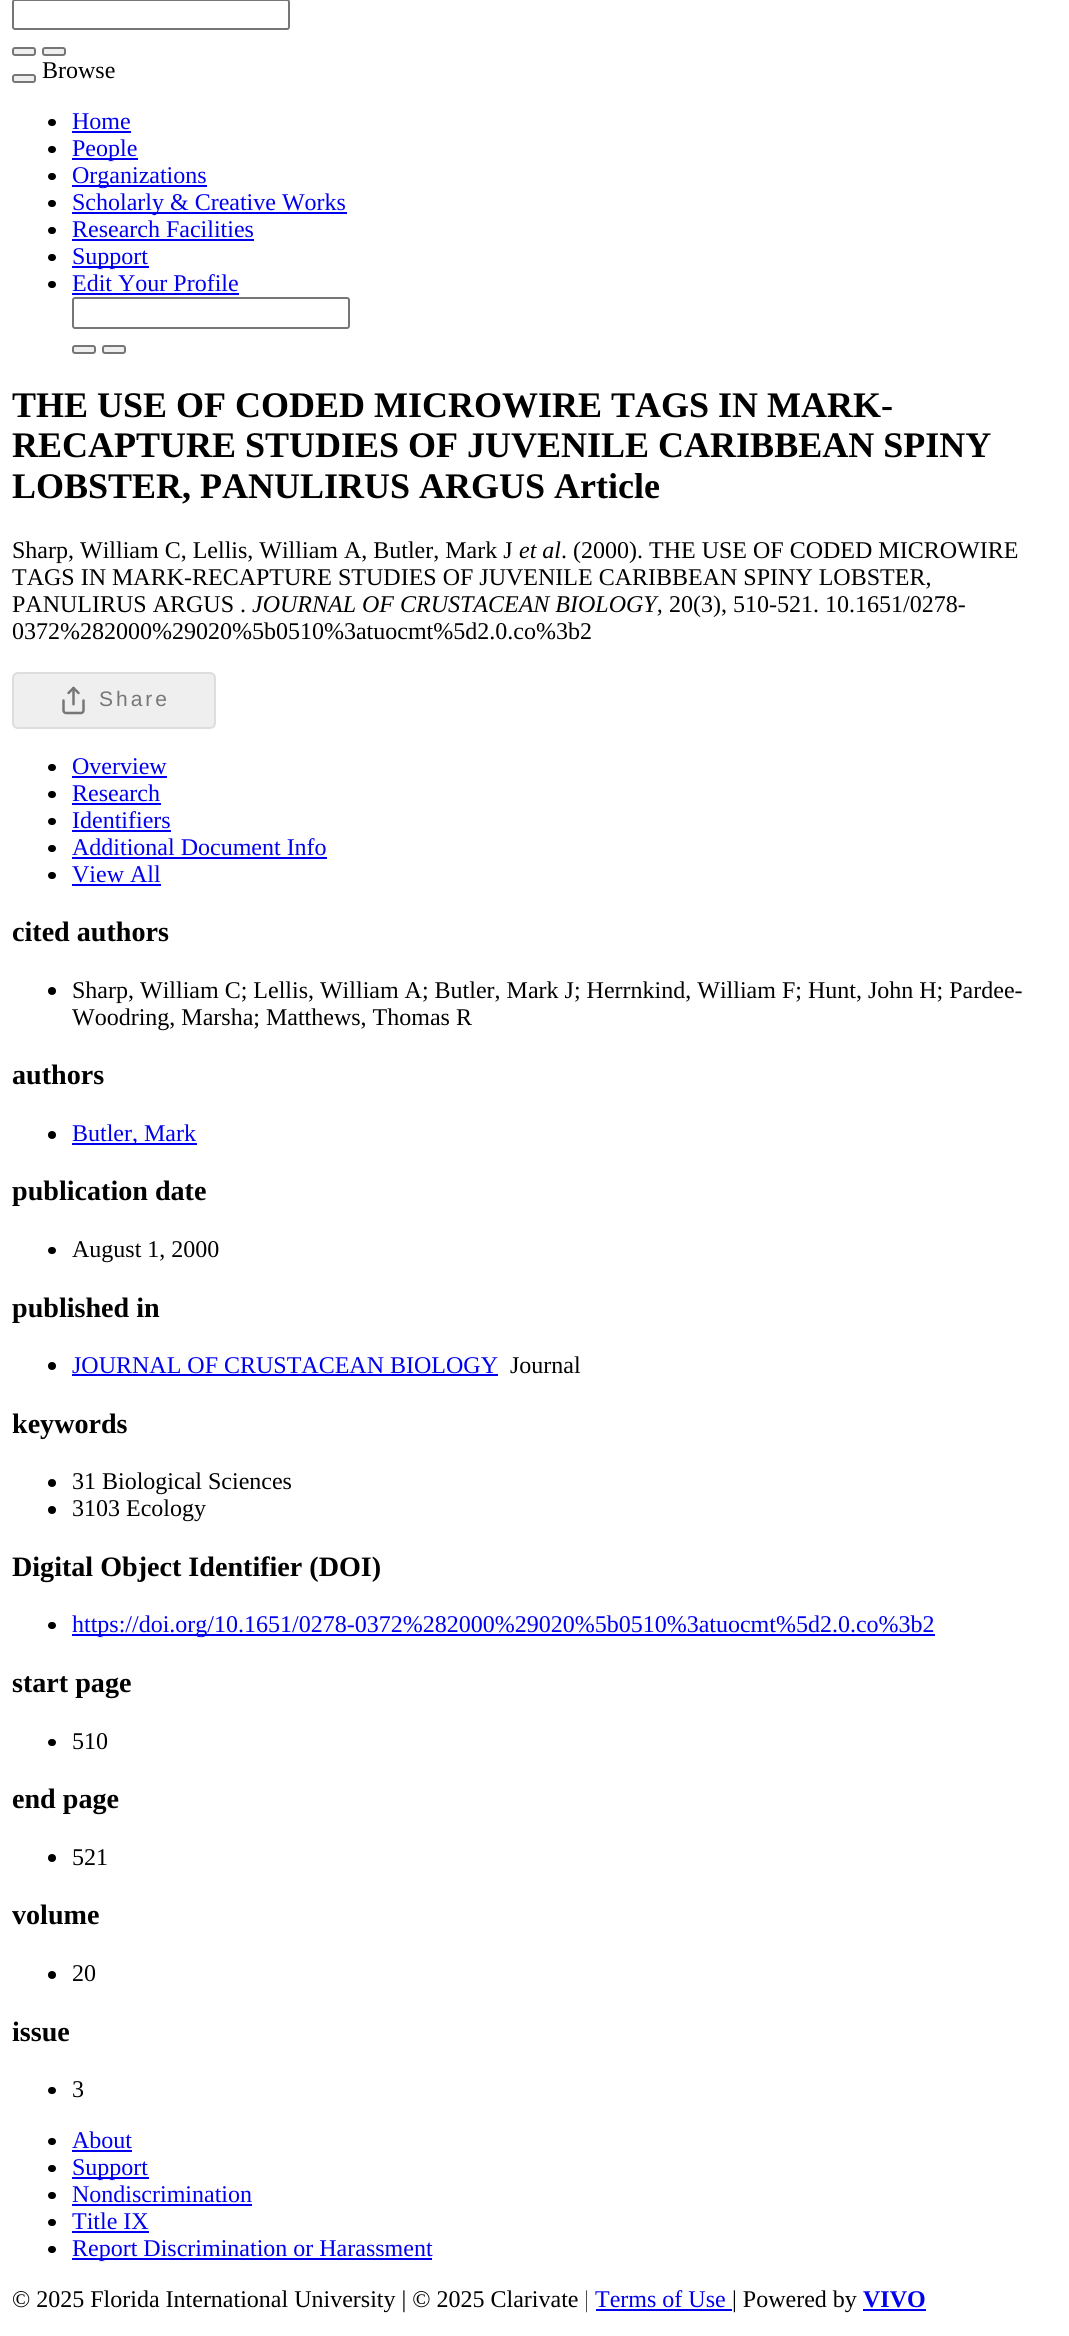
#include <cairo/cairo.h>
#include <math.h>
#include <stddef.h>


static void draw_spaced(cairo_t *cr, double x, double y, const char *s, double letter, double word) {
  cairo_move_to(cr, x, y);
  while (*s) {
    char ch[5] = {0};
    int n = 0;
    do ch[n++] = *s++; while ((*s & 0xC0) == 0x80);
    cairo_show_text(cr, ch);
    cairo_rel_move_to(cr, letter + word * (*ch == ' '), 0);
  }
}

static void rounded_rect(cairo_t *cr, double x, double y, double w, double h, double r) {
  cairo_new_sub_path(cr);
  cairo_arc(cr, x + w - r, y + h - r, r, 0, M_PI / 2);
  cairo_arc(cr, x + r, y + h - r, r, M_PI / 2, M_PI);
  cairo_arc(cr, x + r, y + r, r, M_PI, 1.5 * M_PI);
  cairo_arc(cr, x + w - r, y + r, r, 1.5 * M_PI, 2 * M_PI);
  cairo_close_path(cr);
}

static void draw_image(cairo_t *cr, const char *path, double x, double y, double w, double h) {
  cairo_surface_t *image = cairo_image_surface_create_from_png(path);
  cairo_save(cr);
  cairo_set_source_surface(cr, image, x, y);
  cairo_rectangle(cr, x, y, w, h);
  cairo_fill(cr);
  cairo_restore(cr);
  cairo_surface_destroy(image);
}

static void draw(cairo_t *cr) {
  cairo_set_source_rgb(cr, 1, 1, 1);
  cairo_paint(cr);
  rounded_rect(cr, 13, 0, 276, 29, 2);
  cairo_set_source_rgb(cr, 118 / 255.0, 118 / 255.0, 118 / 255.0);
  cairo_stroke(cr);
  cairo_set_source_rgb(cr, 239 / 255.0, 239 / 255.0, 239 / 255.0);
  rounded_rect(cr, 13, 48, 22, 7, 2);
  cairo_fill_preserve(cr);
  cairo_set_source_rgb(cr, 118 / 255.0, 118 / 255.0, 118 / 255.0);
  cairo_stroke(cr);
  cairo_set_source_rgb(cr, 239 / 255.0, 239 / 255.0, 239 / 255.0);
  rounded_rect(cr, 43, 48, 22, 7, 2);
  cairo_fill_preserve(cr);
  cairo_set_source_rgb(cr, 118 / 255.0, 118 / 255.0, 118 / 255.0);
  cairo_stroke(cr);
  cairo_set_source_rgb(cr, 239 / 255.0, 239 / 255.0, 239 / 255.0);
  rounded_rect(cr, 13, 75, 22, 7, 2);
  cairo_fill_preserve(cr);
  cairo_set_source_rgb(cr, 118 / 255.0, 118 / 255.0, 118 / 255.0);
  cairo_stroke(cr);
  cairo_set_source_rgb(cr, 0, 0, 0);
  rounded_rect(cr, 48, 119, 8, 7, 3.5);
  cairo_fill(cr);
  cairo_set_source_rgb(cr, 0, 0, 238 / 255.0);
  cairo_rectangle(cr, 72, 131, 59, 2);
  cairo_fill(cr);
  cairo_set_source_rgb(cr, 0, 0, 0);
  rounded_rect(cr, 48, 146, 8, 7, 3.5);
  cairo_fill(cr);
  cairo_set_source_rgb(cr, 0, 0, 238 / 255.0);
  cairo_rectangle(cr, 72, 158, 66, 2);
  cairo_fill(cr);
  cairo_set_source_rgb(cr, 0, 0, 0);
  rounded_rect(cr, 48, 173, 8, 7, 3.5);
  cairo_fill(cr);
  cairo_set_source_rgb(cr, 0, 0, 238 / 255.0);
  cairo_rectangle(cr, 72, 185, 135, 2);
  cairo_fill(cr);
  cairo_set_source_rgb(cr, 0, 0, 0);
  rounded_rect(cr, 48, 200, 8, 7, 3.5);
  cairo_fill(cr);
  cairo_set_source_rgb(cr, 0, 0, 238 / 255.0);
  cairo_rectangle(cr, 72, 212, 275, 2);
  cairo_fill(cr);
  cairo_set_source_rgb(cr, 0, 0, 0);
  rounded_rect(cr, 48, 227, 8, 7, 3.5);
  cairo_fill(cr);
  cairo_set_source_rgb(cr, 0, 0, 238 / 255.0);
  cairo_rectangle(cr, 72, 239, 182, 2);
  cairo_fill(cr);
  cairo_set_source_rgb(cr, 0, 0, 0);
  rounded_rect(cr, 48, 254, 8, 7, 3.5);
  cairo_fill(cr);
  cairo_set_source_rgb(cr, 0, 0, 238 / 255.0);
  cairo_rectangle(cr, 72, 266, 77, 2);
  cairo_fill(cr);
  cairo_set_source_rgb(cr, 0, 0, 0);
  rounded_rect(cr, 48, 281, 8, 7, 3.5);
  cairo_fill(cr);
  cairo_set_source_rgb(cr, 0, 0, 238 / 255.0);
  cairo_rectangle(cr, 72, 293, 167, 2);
  cairo_fill(cr);
  rounded_rect(cr, 73, 298, 276, 30, 2);
  cairo_set_source_rgb(cr, 118 / 255.0, 118 / 255.0, 118 / 255.0);
  cairo_stroke(cr);
  cairo_set_source_rgb(cr, 239 / 255.0, 239 / 255.0, 239 / 255.0);
  rounded_rect(cr, 73, 346, 22, 7, 2);
  cairo_fill_preserve(cr);
  cairo_set_source_rgb(cr, 118 / 255.0, 118 / 255.0, 118 / 255.0);
  cairo_stroke(cr);
  cairo_set_source_rgb(cr, 239 / 255.0, 239 / 255.0, 239 / 255.0);
  rounded_rect(cr, 103, 346, 22, 7, 2);
  cairo_fill_preserve(cr);
  cairo_set_source_rgb(cr, 118 / 255.0, 118 / 255.0, 118 / 255.0);
  cairo_stroke(cr);
  cairo_set_source_rgb(cr, 239 / 255.0, 239 / 255.0, 239 / 255.0);
  rounded_rect(cr, 13, 673, 202, 55, 5);
  cairo_fill_preserve(cr);
  cairo_set_source_rgb(cr, 221 / 255.0, 221 / 255.0, 221 / 255.0);
  cairo_stroke(cr);
  draw_image(cr, "images/1.png", 62, 686, 23, 29);
  cairo_set_source_rgb(cr, 0, 0, 0);
  rounded_rect(cr, 48, 764, 8, 7, 3.5);
  cairo_fill(cr);
  cairo_set_source_rgb(cr, 0, 0, 238 / 255.0);
  cairo_rectangle(cr, 72, 776, 95, 2);
  cairo_fill(cr);
  cairo_set_source_rgb(cr, 0, 0, 0);
  rounded_rect(cr, 48, 791, 8, 7, 3.5);
  cairo_fill(cr);
  cairo_set_source_rgb(cr, 0, 0, 238 / 255.0);
  cairo_rectangle(cr, 72, 803, 89, 2);
  cairo_fill(cr);
  cairo_set_source_rgb(cr, 0, 0, 0);
  rounded_rect(cr, 48, 818, 8, 7, 3.5);
  cairo_fill(cr);
  cairo_set_source_rgb(cr, 0, 0, 238 / 255.0);
  cairo_rectangle(cr, 72, 830, 99, 2);
  cairo_fill(cr);
  cairo_set_source_rgb(cr, 0, 0, 0);
  rounded_rect(cr, 48, 845, 8, 7, 3.5);
  cairo_fill(cr);
  cairo_set_source_rgb(cr, 0, 0, 238 / 255.0);
  cairo_rectangle(cr, 72, 857, 255, 2);
  cairo_fill(cr);
  cairo_set_source_rgb(cr, 0, 0, 0);
  rounded_rect(cr, 48, 872, 8, 7, 3.5);
  cairo_fill(cr);
  cairo_set_source_rgb(cr, 0, 0, 238 / 255.0);
  cairo_rectangle(cr, 72, 884, 89, 2);
  cairo_fill(cr);
  cairo_set_source_rgb(cr, 0, 0, 0);
  cairo_arc(cr, 52, 991, 4, 0, 2 * M_PI);
  cairo_fill(cr);
  cairo_arc(cr, 52, 1135, 4, 0, 2 * M_PI);
  cairo_fill(cr);
  cairo_set_source_rgb(cr, 0, 0, 238 / 255.0);
  cairo_rectangle(cr, 72, 1143, 125, 2);
  cairo_fill(cr);
  cairo_set_source_rgb(cr, 0, 0, 0);
  rounded_rect(cr, 48, 1247, 8, 7, 3.5);
  cairo_fill(cr);
  cairo_arc(cr, 52, 1366, 4, 0, 2 * M_PI);
  cairo_fill(cr);
  cairo_set_source_rgb(cr, 0, 0, 238 / 255.0);
  cairo_rectangle(cr, 72, 1374, 426, 2);
  cairo_fill(cr);
  cairo_set_source_rgb(cr, 0, 0, 0);
  cairo_arc(cr, 52, 1483, 4, 0, 2 * M_PI);
  cairo_fill(cr);
  cairo_arc(cr, 52, 1510, 4, 0, 2 * M_PI);
  cairo_fill(cr);
  rounded_rect(cr, 48, 1622, 8, 7, 3.5);
  cairo_fill(cr);
  cairo_set_source_rgb(cr, 0, 0, 238 / 255.0);
  cairo_rectangle(cr, 72, 1634, 863, 2);
  cairo_fill(cr);
  cairo_set_source_rgb(cr, 0, 0, 0);
  rounded_rect(cr, 48, 1739, 8, 7, 3.5);
  cairo_fill(cr);
  cairo_arc(cr, 52, 1858, 4, 0, 2 * M_PI);
  cairo_fill(cr);
  cairo_arc(cr, 52, 1975, 4, 0, 2 * M_PI);
  cairo_fill(cr);
  rounded_rect(cr, 48, 2087, 8, 7, 3.5);
  cairo_fill(cr);
  rounded_rect(cr, 48, 2138, 8, 7, 3.5);
  cairo_fill(cr);
  cairo_set_source_rgb(cr, 0, 0, 238 / 255.0);
  cairo_rectangle(cr, 72, 2150, 60, 2);
  cairo_fill(cr);
  cairo_set_source_rgb(cr, 0, 0, 0);
  rounded_rect(cr, 48, 2165, 8, 7, 3.5);
  cairo_fill(cr);
  cairo_set_source_rgb(cr, 0, 0, 238 / 255.0);
  cairo_rectangle(cr, 72, 2177, 77, 2);
  cairo_fill(cr);
  cairo_set_source_rgb(cr, 0, 0, 0);
  rounded_rect(cr, 48, 2192, 8, 7, 3.5);
  cairo_fill(cr);
  cairo_set_source_rgb(cr, 0, 0, 238 / 255.0);
  cairo_rectangle(cr, 72, 2204, 180, 2);
  cairo_fill(cr);
  cairo_set_source_rgb(cr, 0, 0, 0);
  rounded_rect(cr, 48, 2219, 8, 7, 3.5);
  cairo_fill(cr);
  cairo_set_source_rgb(cr, 0, 0, 238 / 255.0);
  cairo_rectangle(cr, 72, 2231, 77, 2);
  cairo_fill(cr);
  cairo_set_source_rgb(cr, 0, 0, 0);
  rounded_rect(cr, 48, 2246, 8, 7, 3.5);
  cairo_fill(cr);
  cairo_set_source_rgb(cr, 0, 0, 238 / 255.0);
  cairo_rectangle(cr, 72, 2258, 360, 2);
  cairo_fill(cr);
  cairo_rectangle(cr, 596, 2309, 136, 2);
  cairo_fill(cr);
  cairo_rectangle(cr, 863, 2309, 63, 2);
  cairo_fill(cr);
  cairo_select_font_face(cr, "Liberation Serif", CAIRO_FONT_SLANT_NORMAL, CAIRO_FONT_WEIGHT_NORMAL);
  cairo_set_font_size(cr, 24);
  cairo_set_source_rgb(cr, 0, 0, 0);
  cairo_move_to(cr, 42, 78);
  cairo_show_text(cr, "Browse");
  cairo_set_source_rgb(cr, 0, 0, 238 / 255.0);
  cairo_move_to(cr, 72, 129);
  cairo_show_text(cr, "Home");
  cairo_move_to(cr, 72, 156);
  cairo_show_text(cr, "People");
  cairo_move_to(cr, 72, 183);
  cairo_show_text(cr, "Organizations");
  cairo_move_to(cr, 72, 210);
  cairo_show_text(cr, "Scholarly & Creative Works");
  cairo_move_to(cr, 72, 237);
  cairo_show_text(cr, "Research Facilities");
  cairo_move_to(cr, 72, 264);
  cairo_show_text(cr, "Support");
  cairo_move_to(cr, 72, 291);
  cairo_show_text(cr, "Edit Your Profile");
  cairo_select_font_face(cr, "Liberation Serif", CAIRO_FONT_SLANT_NORMAL, CAIRO_FONT_WEIGHT_BOLD);
  cairo_set_font_size(cr, 36);
  cairo_set_source_rgb(cr, 0, 0, 0);
  cairo_move_to(cr, 12, 417);
  cairo_show_text(cr, "THE USE OF CODED MICROWIRE TAGS IN MARK-");
  cairo_move_to(cr, 12, 457);
  cairo_show_text(cr, "RECAPTURE STUDIES OF JUVENILE CARIBBEAN SPINY");
  cairo_move_to(cr, 12, 498);
  cairo_show_text(cr, "LOBSTER, PANULIRUS ARGUS Article");
  cairo_select_font_face(cr, "Liberation Serif", CAIRO_FONT_SLANT_NORMAL, CAIRO_FONT_WEIGHT_NORMAL);
  cairo_set_font_size(cr, 24);
  cairo_move_to(cr, 12, 558);
  cairo_show_text(cr, "Sharp, William C, Lellis, William A, Butler, Mark J");
  cairo_select_font_face(cr, "Liberation Serif", CAIRO_FONT_SLANT_ITALIC, CAIRO_FONT_WEIGHT_NORMAL);
  cairo_move_to(cr, 519, 558);
  cairo_show_text(cr, "et al");
  cairo_select_font_face(cr, "Liberation Serif", CAIRO_FONT_SLANT_NORMAL, CAIRO_FONT_WEIGHT_NORMAL);
  cairo_move_to(cr, 561, 558);
  cairo_show_text(cr, ". (2000). THE USE OF CODED MICROWIRE");
  cairo_move_to(cr, 12, 585);
  cairo_show_text(cr, "TAGS IN MARK-RECAPTURE STUDIES OF JUVENILE CARIBBEAN SPINY LOBSTER,");
  cairo_move_to(cr, 12, 612);
  cairo_show_text(cr, "PANULIRUS ARGUS .");
  cairo_select_font_face(cr, "Liberation Serif", CAIRO_FONT_SLANT_ITALIC, CAIRO_FONT_WEIGHT_NORMAL);
  cairo_move_to(cr, 252, 612);
  cairo_show_text(cr, "JOURNAL OF CRUSTACEAN BIOLOGY,");
  cairo_select_font_face(cr, "Liberation Serif", CAIRO_FONT_SLANT_NORMAL, CAIRO_FONT_WEIGHT_NORMAL);
  cairo_move_to(cr, 669, 612);
  cairo_show_text(cr, "20(3), 510-521. 10.1651/0278-");
  cairo_move_to(cr, 12, 639);
  cairo_show_text(cr, "0372%282000%29020%5b0510%3atuocmt%5d2.0.co%3b2");
  cairo_select_font_face(cr, "Liberation Sans", CAIRO_FONT_SLANT_NORMAL, CAIRO_FONT_WEIGHT_NORMAL);
  cairo_set_font_size(cr, 21);
  cairo_set_source_rgb(cr, 119 / 255.0, 119 / 255.0, 119 / 255.0);
  draw_spaced(cr, 99, 706, "Share", 3, 0);
  cairo_select_font_face(cr, "Liberation Serif", CAIRO_FONT_SLANT_NORMAL, CAIRO_FONT_WEIGHT_NORMAL);
  cairo_set_font_size(cr, 24);
  cairo_set_source_rgb(cr, 0, 0, 238 / 255.0);
  cairo_move_to(cr, 72, 774);
  cairo_show_text(cr, "Overview");
  cairo_move_to(cr, 72, 801);
  cairo_show_text(cr, "Research");
  cairo_move_to(cr, 72, 828);
  cairo_show_text(cr, "Identifiers");
  cairo_move_to(cr, 72, 855);
  cairo_show_text(cr, "Additional Document Info");
  cairo_move_to(cr, 72, 882);
  cairo_show_text(cr, "View All");
  cairo_select_font_face(cr, "Liberation Serif", CAIRO_FONT_SLANT_NORMAL, CAIRO_FONT_WEIGHT_BOLD);
  cairo_set_font_size(cr, 28.1);
  cairo_set_source_rgb(cr, 0, 0, 0);
  cairo_move_to(cr, 12, 941);
  cairo_show_text(cr, "cited authors");
  cairo_select_font_face(cr, "Liberation Serif", CAIRO_FONT_SLANT_NORMAL, CAIRO_FONT_WEIGHT_NORMAL);
  cairo_set_font_size(cr, 24);
  cairo_move_to(cr, 72, 998);
  cairo_show_text(cr, "Sharp, William C; Lellis, William A; Butler, Mark J; Herrnkind, William F; Hunt, John H; Pardee-");
  cairo_move_to(cr, 72, 1025);
  cairo_show_text(cr, "Woodring, Marsha; Matthews, Thomas R");
  cairo_select_font_face(cr, "Liberation Serif", CAIRO_FONT_SLANT_NORMAL, CAIRO_FONT_WEIGHT_BOLD);
  cairo_set_font_size(cr, 28.1);
  cairo_move_to(cr, 12, 1084);
  cairo_show_text(cr, "authors");
  cairo_select_font_face(cr, "Liberation Serif", CAIRO_FONT_SLANT_NORMAL, CAIRO_FONT_WEIGHT_NORMAL);
  cairo_set_font_size(cr, 24);
  cairo_set_source_rgb(cr, 0, 0, 238 / 255.0);
  cairo_move_to(cr, 72, 1141);
  cairo_show_text(cr, "Butler, Mark");
  cairo_select_font_face(cr, "Liberation Serif", CAIRO_FONT_SLANT_NORMAL, CAIRO_FONT_WEIGHT_BOLD);
  cairo_set_font_size(cr, 28.1);
  cairo_set_source_rgb(cr, 0, 0, 0);
  cairo_move_to(cr, 12, 1200);
  cairo_show_text(cr, "publication date");
  cairo_select_font_face(cr, "Liberation Serif", CAIRO_FONT_SLANT_NORMAL, CAIRO_FONT_WEIGHT_NORMAL);
  cairo_set_font_size(cr, 24);
  cairo_move_to(cr, 72, 1257);
  cairo_show_text(cr, "August 1, 2000");
  cairo_select_font_face(cr, "Liberation Serif", CAIRO_FONT_SLANT_NORMAL, CAIRO_FONT_WEIGHT_BOLD);
  cairo_set_font_size(cr, 28.1);
  cairo_move_to(cr, 12, 1317);
  cairo_show_text(cr, "published in");
  cairo_select_font_face(cr, "Liberation Serif", CAIRO_FONT_SLANT_NORMAL, CAIRO_FONT_WEIGHT_NORMAL);
  cairo_set_font_size(cr, 24);
  cairo_set_source_rgb(cr, 0, 0, 238 / 255.0);
  cairo_move_to(cr, 72, 1373);
  cairo_show_text(cr, "JOURNAL OF CRUSTACEAN BIOLOGY");
  cairo_set_source_rgb(cr, 0, 0, 0);
  cairo_move_to(cr, 510, 1373);
  cairo_show_text(cr, "Journal");
  cairo_select_font_face(cr, "Liberation Serif", CAIRO_FONT_SLANT_NORMAL, CAIRO_FONT_WEIGHT_BOLD);
  cairo_set_font_size(cr, 28.1);
  cairo_move_to(cr, 12, 1433);
  cairo_show_text(cr, "keywords");
  cairo_select_font_face(cr, "Liberation Serif", CAIRO_FONT_SLANT_NORMAL, CAIRO_FONT_WEIGHT_NORMAL);
  cairo_set_font_size(cr, 24);
  cairo_move_to(cr, 72, 1489);
  cairo_show_text(cr, "31 Biological Sciences");
  cairo_move_to(cr, 72, 1516);
  cairo_show_text(cr, "3103 Ecology");
  cairo_select_font_face(cr, "Liberation Serif", CAIRO_FONT_SLANT_NORMAL, CAIRO_FONT_WEIGHT_BOLD);
  cairo_set_font_size(cr, 28.1);
  cairo_move_to(cr, 12, 1576);
  cairo_show_text(cr, "Digital Object Identifier (DOI)");
  cairo_select_font_face(cr, "Liberation Serif", CAIRO_FONT_SLANT_NORMAL, CAIRO_FONT_WEIGHT_NORMAL);
  cairo_set_font_size(cr, 24);
  cairo_set_source_rgb(cr, 0, 0, 238 / 255.0);
  cairo_move_to(cr, 72, 1632);
  cairo_show_text(cr, "https://doi.org/10.1651/0278-0372%282000%29020%5b0510%3atuocmt%5d2.0.co%3b2");
  cairo_select_font_face(cr, "Liberation Serif", CAIRO_FONT_SLANT_NORMAL, CAIRO_FONT_WEIGHT_BOLD);
  cairo_set_font_size(cr, 28.1);
  cairo_set_source_rgb(cr, 0, 0, 0);
  cairo_move_to(cr, 12, 1692);
  cairo_show_text(cr, "start page");
  cairo_select_font_face(cr, "Liberation Serif", CAIRO_FONT_SLANT_NORMAL, CAIRO_FONT_WEIGHT_NORMAL);
  cairo_set_font_size(cr, 24);
  cairo_move_to(cr, 72, 1749);
  cairo_show_text(cr, "510");
  cairo_select_font_face(cr, "Liberation Serif", CAIRO_FONT_SLANT_NORMAL, CAIRO_FONT_WEIGHT_BOLD);
  cairo_set_font_size(cr, 28.1);
  cairo_move_to(cr, 12, 1808);
  cairo_show_text(cr, "end page");
  cairo_select_font_face(cr, "Liberation Serif", CAIRO_FONT_SLANT_NORMAL, CAIRO_FONT_WEIGHT_NORMAL);
  cairo_set_font_size(cr, 24);
  cairo_move_to(cr, 72, 1865);
  cairo_show_text(cr, "521");
  cairo_select_font_face(cr, "Liberation Serif", CAIRO_FONT_SLANT_NORMAL, CAIRO_FONT_WEIGHT_BOLD);
  cairo_set_font_size(cr, 28.1);
  cairo_move_to(cr, 12, 1924);
  cairo_show_text(cr, "volume");
  cairo_select_font_face(cr, "Liberation Serif", CAIRO_FONT_SLANT_NORMAL, CAIRO_FONT_WEIGHT_NORMAL);
  cairo_set_font_size(cr, 24);
  cairo_move_to(cr, 72, 1981);
  cairo_show_text(cr, "20");
  cairo_select_font_face(cr, "Liberation Serif", CAIRO_FONT_SLANT_NORMAL, CAIRO_FONT_WEIGHT_BOLD);
  cairo_set_font_size(cr, 28.1);
  cairo_move_to(cr, 12, 2041);
  cairo_show_text(cr, "issue");
  cairo_select_font_face(cr, "Liberation Serif", CAIRO_FONT_SLANT_NORMAL, CAIRO_FONT_WEIGHT_NORMAL);
  cairo_set_font_size(cr, 24);
  cairo_move_to(cr, 72, 2097);
  cairo_show_text(cr, "3");
  cairo_set_source_rgb(cr, 0, 0, 238 / 255.0);
  cairo_move_to(cr, 72, 2148);
  cairo_show_text(cr, "About");
  cairo_move_to(cr, 72, 2175);
  cairo_show_text(cr, "Support");
  cairo_move_to(cr, 72, 2202);
  cairo_show_text(cr, "Nondiscrimination");
  cairo_move_to(cr, 72, 2229);
  cairo_show_text(cr, "Title IX");
  cairo_move_to(cr, 72, 2256);
  cairo_show_text(cr, "Report Discrimination or Harassment");
  cairo_set_source_rgb(cr, 0, 0, 0);
  cairo_move_to(cr, 12, 2307);
  cairo_show_text(cr, "© 2025 Florida International University | © 2025 Clarivate |");
  cairo_set_source_rgb(cr, 0, 0, 238 / 255.0);
  cairo_move_to(cr, 595, 2307);
  cairo_show_text(cr, "Terms of Use");
  cairo_set_source_rgb(cr, 0, 0, 0);
  cairo_move_to(cr, 732, 2307);
  cairo_show_text(cr, "| Powered by");
  cairo_select_font_face(cr, "Liberation Serif", CAIRO_FONT_SLANT_NORMAL, CAIRO_FONT_WEIGHT_BOLD);
  cairo_set_source_rgb(cr, 0, 0, 238 / 255.0);
  cairo_move_to(cr, 863, 2307);
  cairo_show_text(cr, "VIVO");
}

int main(void) {
  cairo_surface_t *surface = cairo_image_surface_create(CAIRO_FORMAT_RGB24, 1069, 2336);
  cairo_t *cr = cairo_create(surface);
  cairo_font_options_t *options = cairo_font_options_create();
  cairo_font_options_set_hint_metrics(options, CAIRO_HINT_METRICS_OFF);
  cairo_font_options_set_hint_style(options, CAIRO_HINT_STYLE_NONE);
  cairo_set_font_options(cr, options);
  cairo_set_miter_limit(cr, 4);
  draw(cr);
  cairo_surface_write_to_png(surface, "out.png");
  cairo_font_options_destroy(options);
  cairo_destroy(cr);
  cairo_surface_destroy(surface);
  return 0;
}
